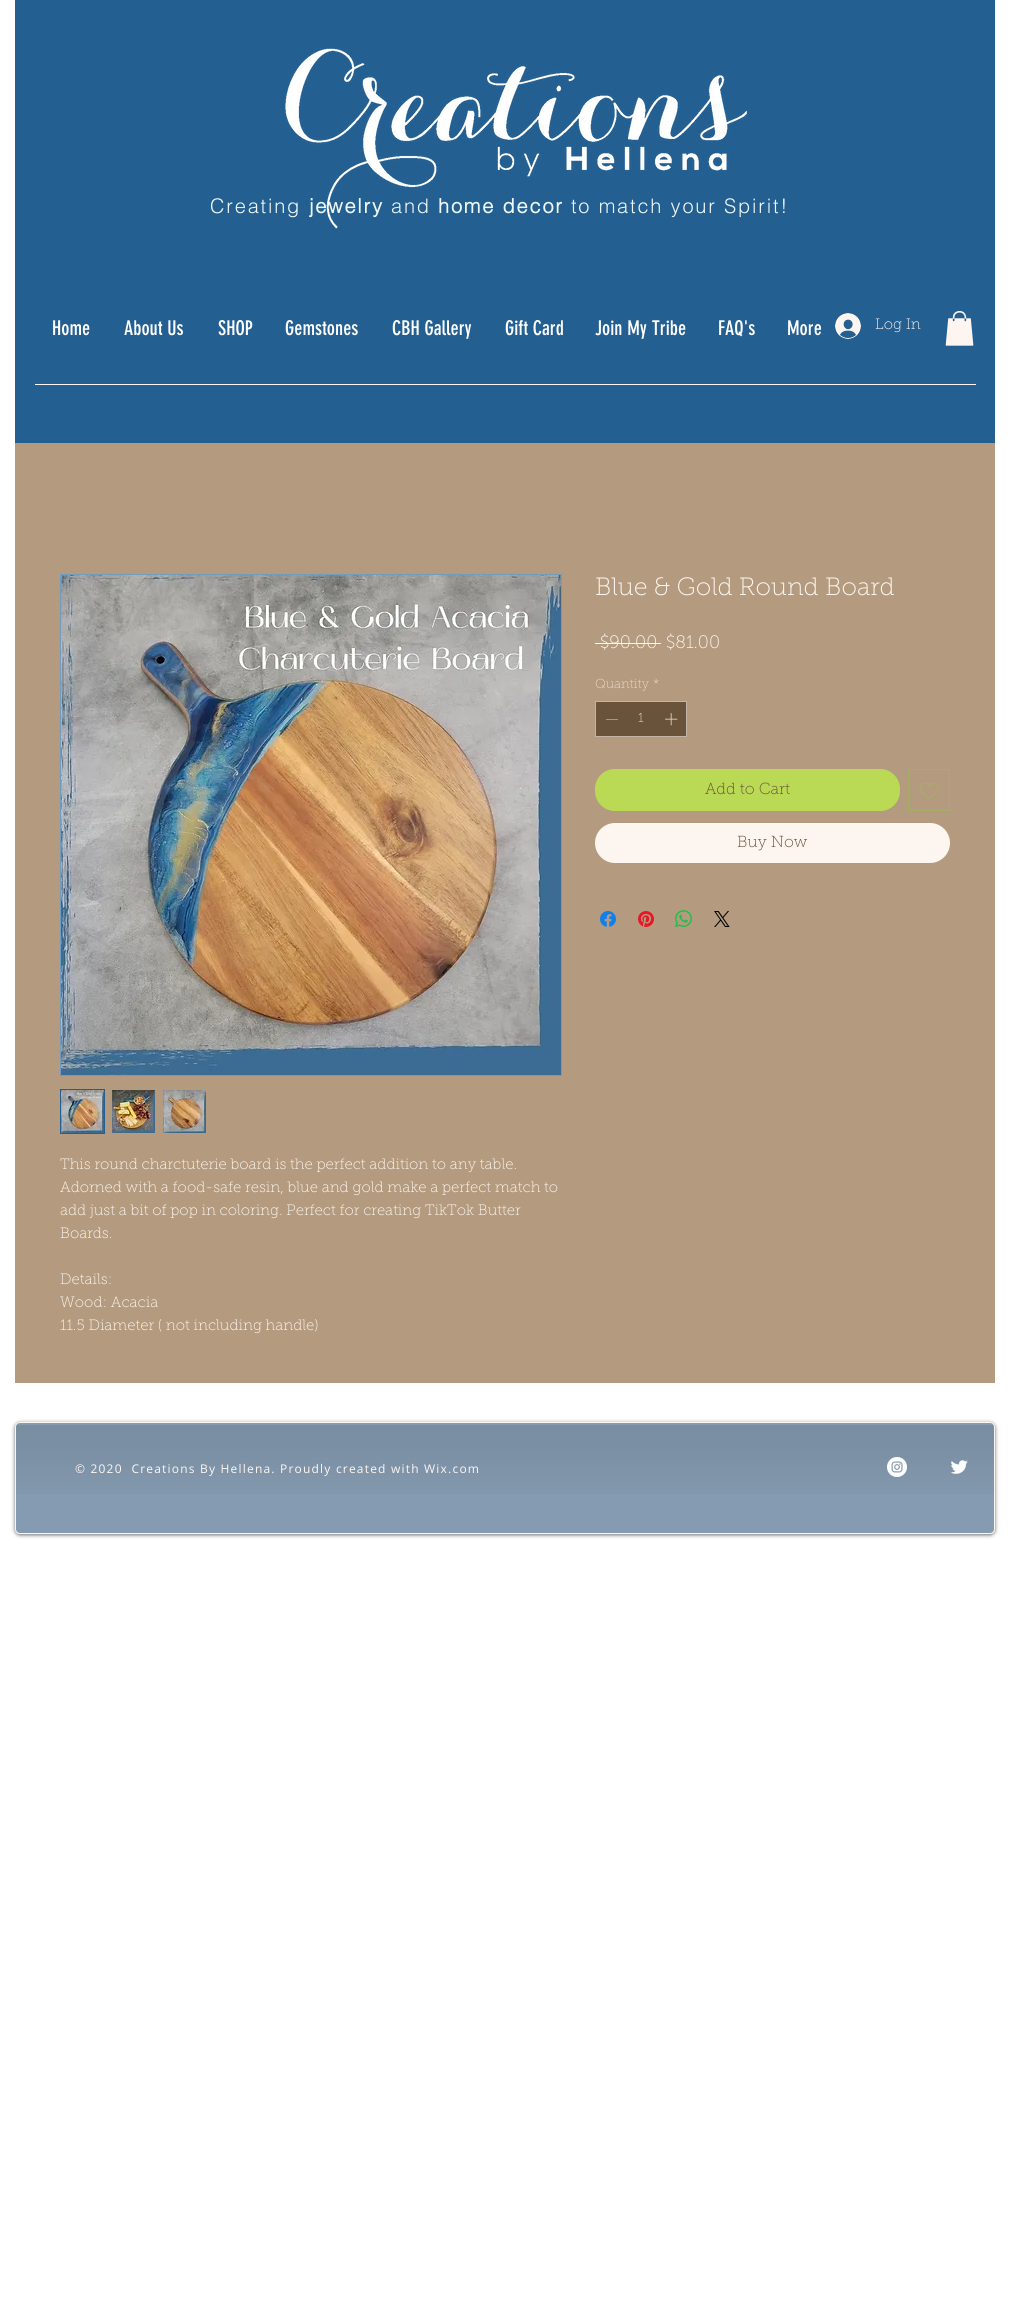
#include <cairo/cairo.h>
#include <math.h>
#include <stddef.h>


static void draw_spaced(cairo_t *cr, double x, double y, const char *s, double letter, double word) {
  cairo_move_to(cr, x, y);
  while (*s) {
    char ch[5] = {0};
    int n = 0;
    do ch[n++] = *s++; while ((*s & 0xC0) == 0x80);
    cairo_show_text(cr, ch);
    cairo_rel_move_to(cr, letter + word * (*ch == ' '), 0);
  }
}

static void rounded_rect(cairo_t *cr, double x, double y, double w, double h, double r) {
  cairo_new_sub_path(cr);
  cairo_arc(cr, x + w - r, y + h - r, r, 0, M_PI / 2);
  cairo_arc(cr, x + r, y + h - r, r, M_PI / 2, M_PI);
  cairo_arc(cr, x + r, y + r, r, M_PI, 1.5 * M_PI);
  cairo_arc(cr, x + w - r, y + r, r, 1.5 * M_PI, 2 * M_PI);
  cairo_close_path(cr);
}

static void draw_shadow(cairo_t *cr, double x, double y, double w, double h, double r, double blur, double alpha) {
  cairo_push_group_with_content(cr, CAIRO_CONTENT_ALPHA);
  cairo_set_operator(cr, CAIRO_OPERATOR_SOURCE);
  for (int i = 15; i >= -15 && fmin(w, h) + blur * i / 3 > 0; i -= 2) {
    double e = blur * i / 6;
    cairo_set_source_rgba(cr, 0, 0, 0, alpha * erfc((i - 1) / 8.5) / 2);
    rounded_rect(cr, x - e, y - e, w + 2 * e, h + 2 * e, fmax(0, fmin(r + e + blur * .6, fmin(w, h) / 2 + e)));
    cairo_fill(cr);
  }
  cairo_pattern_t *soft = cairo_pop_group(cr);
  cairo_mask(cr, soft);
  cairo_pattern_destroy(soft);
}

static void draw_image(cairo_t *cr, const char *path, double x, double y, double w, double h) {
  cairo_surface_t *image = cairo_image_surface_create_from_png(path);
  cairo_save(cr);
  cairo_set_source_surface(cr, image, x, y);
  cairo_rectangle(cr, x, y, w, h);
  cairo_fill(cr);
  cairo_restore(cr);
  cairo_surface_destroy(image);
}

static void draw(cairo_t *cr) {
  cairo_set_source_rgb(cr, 1, 1, 1);
  cairo_paint(cr);
  cairo_set_source_rgb(cr, 36 / 255.0, 95 / 255.0, 146 / 255.0);
  cairo_rectangle(cr, 15, 0, 980, 443);
  cairo_fill(cr);
  draw_image(cr, "images/1.png", 285, 48, 462, 181);
  draw_image(cr, "images/2.png", 835, 313, 26, 26);
  draw_image(cr, "images/3.png", 945, 311, 29, 35);
  cairo_set_source_rgb(cr, 253 / 255.0, 246 / 255.0, 240 / 255.0);
  cairo_rectangle(cr, 35, 384, 941, 1);
  cairo_fill(cr);
  cairo_set_source_rgb(cr, 180 / 255.0, 155 / 255.0, 127 / 255.0);
  cairo_rectangle(cr, 15, 443, 980, 940);
  cairo_fill(cr);
  cairo_set_source_rgb(cr, 253 / 255.0, 246 / 255.0, 240 / 255.0);
  cairo_rectangle(cr, 595, 643, 66, 1);
  cairo_fill(cr);
  cairo_set_source_rgb(cr, 105 / 255.0, 83 / 255.0, 58 / 255.0);
  cairo_rectangle(cr, 595.5, 701.5, 91, 35);
  cairo_fill_preserve(cr);
  cairo_set_source_rgb(cr, 194 / 255.0, 181 / 255.0, 167 / 255.0);
  cairo_set_line_width(cr, 1);
  cairo_stroke(cr);
  cairo_set_source_rgb(cr, 233 / 255.0, 219 / 255.0, 203 / 255.0);
  cairo_set_fill_rule(cr, CAIRO_FILL_RULE_EVEN_ODD);
  cairo_new_path(cr);
  cairo_move_to(cr, 618, 719);
  cairo_line_to(cr, 618, 719.5);
  cairo_line_to(cr, 606, 719.5);
  cairo_line_to(cr, 606, 719);
  cairo_close_path(cr);
  cairo_fill(cr);
  draw_image(cr, "images/4.png", 665, 713, 13, 13);
  cairo_set_source_rgb(cr, 186 / 255.0, 218 / 255.0, 85 / 255.0);
  rounded_rect(cr, 595, 769, 305, 42, 20);
  cairo_fill(cr);
  cairo_rectangle(cr, 908.5, 769.5, 41, 41);
  cairo_set_source_rgb(cr, 165 / 255.0, 175 / 255.0, 99 / 255.0);
  cairo_stroke(cr);
  draw_image(cr, "images/5.png", 920, 782, 19, 17);
  cairo_set_source_rgb(cr, 253 / 255.0, 246 / 255.0, 240 / 255.0);
  rounded_rect(cr, 595, 823, 355, 40, 20);
  cairo_fill(cr);
  draw_image(cr, "images/6.png", 600, 911, 16, 16);
  draw_image(cr, "images/7.png", 638, 911, 16, 16);
  draw_image(cr, "images/8.png", 675, 910, 17, 17);
  draw_image(cr, "images/9.png", 714, 911, 16, 16);
  cairo_rectangle(cr, 60.5, 574.5, 501, 501);
  cairo_set_source_rgb(cr, 112 / 255.0, 156 / 255.0, 194 / 255.0);
  cairo_stroke(cr);
  draw_image(cr, "images/10.png", 61, 575, 500, 500);
  cairo_rectangle(cr, 60.5, 1089.5, 44, 44);
  cairo_set_source_rgb(cr, 36 / 255.0, 95 / 255.0, 146 / 255.0);
  cairo_stroke(cr);
  draw_image(cr, "images/11.png", 61, 1090, 43, 43);
  draw_image(cr, "images/12.png", 112, 1090, 43, 43);
  draw_image(cr, "images/13.png", 163, 1090, 43, 43);
  cairo_save(cr);
  cairo_new_path(cr);
  cairo_move_to(cr, 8, 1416);
  cairo_line_to(cr, 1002, 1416);
  cairo_line_to(cr, 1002, 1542);
  cairo_line_to(cr, 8, 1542);
  cairo_close_path(cr);
  cairo_move_to(cr, 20, 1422);
  cairo_line_to(cr, 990, 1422);
  cairo_curve_to(cr, 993, 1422, 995, 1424, 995, 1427);
  cairo_line_to(cr, 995, 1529);
  cairo_curve_to(cr, 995, 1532, 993, 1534, 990, 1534);
  cairo_line_to(cr, 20, 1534);
  cairo_curve_to(cr, 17, 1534, 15, 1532, 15, 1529);
  cairo_line_to(cr, 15, 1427);
  cairo_curve_to(cr, 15, 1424, 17, 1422, 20, 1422);
  cairo_close_path(cr);
  cairo_clip(cr);
  cairo_set_source_rgb(cr, 0, 0, 0);
  draw_shadow(cr, 15, 1423, 980, 112, 5, 2, 0.6);
  cairo_restore(cr);
  cairo_set_source_rgba(cr, 0, 46 / 255.0, 93 / 255.0, 0.48);
  rounded_rect(cr, 15, 1422, 980, 112, 5);
  cairo_fill(cr);
  draw_image(cr, "images/14.png", 15, 1425, 980, 69);
  rounded_rect(cr, 15.5, 1422.5, 979, 111, 4.5);
  cairo_set_source_rgb(cr, 253 / 255.0, 246 / 255.0, 240 / 255.0);
  cairo_stroke(cr);
  draw_image(cr, "images/15.png", 887, 1457, 20, 20);
  draw_image(cr, "images/16.png", 950, 1460, 18, 14);
  cairo_select_font_face(cr, "helvetica Light", CAIRO_FONT_SLANT_NORMAL, CAIRO_FONT_WEIGHT_NORMAL);
  cairo_set_font_size(cr, 20);
  cairo_set_source_rgb(cr, 237 / 255.0, 247 / 255.0, 247 / 255.0);
  draw_spaced(cr, 210, 213, "Creating", 1.8, 0);
  cairo_select_font_face(cr, "helvetica", CAIRO_FONT_SLANT_NORMAL, CAIRO_FONT_WEIGHT_BOLD);
  draw_spaced(cr, 309, 213, "jewelry", 1.8, 0);
  cairo_select_font_face(cr, "helvetica Light", CAIRO_FONT_SLANT_NORMAL, CAIRO_FONT_WEIGHT_NORMAL);
  draw_spaced(cr, 391, 213, "and", 1.8, 0);
  cairo_select_font_face(cr, "helvetica", CAIRO_FONT_SLANT_NORMAL, CAIRO_FONT_WEIGHT_BOLD);
  draw_spaced(cr, 438, 213, "home decor", 1.8, 0);
  cairo_select_font_face(cr, "helvetica Light", CAIRO_FONT_SLANT_NORMAL, CAIRO_FONT_WEIGHT_NORMAL);
  draw_spaced(cr, 571, 213, "to match your Spirit!", 1.8, 0);
  cairo_select_font_face(cr, "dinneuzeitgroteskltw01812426", CAIRO_FONT_SLANT_NORMAL, CAIRO_FONT_WEIGHT_NORMAL);
  cairo_set_source_rgb(cr, 1, 1, 1);
  cairo_move_to(cr, 52, 335);
  cairo_show_text(cr, "Home");
  cairo_move_to(cr, 124, 335);
  cairo_show_text(cr, "About Us");
  cairo_move_to(cr, 218, 335);
  cairo_show_text(cr, "SHOP");
  cairo_move_to(cr, 285, 335);
  cairo_show_text(cr, "Gemstones");
  cairo_move_to(cr, 392, 335);
  cairo_show_text(cr, "CBH Gallery");
  cairo_move_to(cr, 505, 335);
  cairo_show_text(cr, "Gift Card");
  cairo_move_to(cr, 595, 335);
  cairo_show_text(cr, "Join My Tribe");
  cairo_move_to(cr, 718, 335);
  cairo_show_text(cr, "FAQ's");
  cairo_move_to(cr, 787, 335);
  cairo_show_text(cr, "More");
  cairo_select_font_face(cr, "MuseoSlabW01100 Thin", CAIRO_FONT_SLANT_NORMAL, CAIRO_FONT_WEIGHT_NORMAL);
  cairo_set_font_size(cr, 15);
  cairo_set_source_rgb(cr, 253 / 255.0, 246 / 255.0, 240 / 255.0);
  cairo_move_to(cr, 875, 329);
  cairo_show_text(cr, "Log In");
  cairo_set_font_size(cr, 25);
  cairo_move_to(cr, 595, 595);
  cairo_show_text(cr, "Blue & Gold Round Board");
  cairo_set_font_size(cr, 18);
  cairo_move_to(cr, 600, 648);
  cairo_show_text(cr, "$90.00");
  cairo_move_to(cr, 666, 648);
  cairo_show_text(cr, "$81.00");
  cairo_set_font_size(cr, 13);
  cairo_set_source_rgb(cr, 233 / 255.0, 219 / 255.0, 203 / 255.0);
  cairo_move_to(cr, 595, 688);
  cairo_show_text(cr, "Quantity");
  cairo_move_to(cr, 653, 688);
  cairo_show_text(cr, "*");
  cairo_move_to(cr, 638, 722);
  cairo_show_text(cr, "1");
  cairo_set_font_size(cr, 16);
  cairo_set_source_rgb(cr, 105 / 255.0, 83 / 255.0, 58 / 255.0);
  cairo_move_to(cr, 705, 794);
  cairo_show_text(cr, "Add to Cart");
  cairo_move_to(cr, 737, 847);
  cairo_show_text(cr, "Buy Now");
  cairo_set_font_size(cr, 15);
  cairo_set_source_rgb(cr, 253 / 255.0, 246 / 255.0, 240 / 255.0);
  cairo_move_to(cr, 60, 1169);
  cairo_show_text(cr, "This round charctuterie board is the perfect addition to any table.");
  cairo_move_to(cr, 60, 1192);
  cairo_show_text(cr, "Adorned with a food-safe resin, blue and gold make a perfect match to");
  cairo_move_to(cr, 60, 1215);
  cairo_show_text(cr, "add just a bit of pop in coloring. Perfect for creating TikTok Butter");
  cairo_move_to(cr, 60, 1238);
  cairo_show_text(cr, "Boards.");
  cairo_move_to(cr, 60, 1284);
  cairo_show_text(cr, "Details:");
  cairo_move_to(cr, 60, 1307);
  cairo_show_text(cr, "Wood: Acacia");
  cairo_move_to(cr, 60, 1330);
  cairo_show_text(cr, "11.5 Diameter ( not including handle)");
  cairo_select_font_face(cr, "Open Sans", CAIRO_FONT_SLANT_NORMAL, CAIRO_FONT_WEIGHT_NORMAL);
  cairo_set_font_size(cr, 12);
  draw_spaced(cr, 75, 1473, "© 2020  Creations By Hellena. Proudly created with Wix.com", 1.2, 0);
}

int main(void) {
  cairo_surface_t *surface = cairo_image_surface_create(CAIRO_FORMAT_RGB24, 1010, 2306);
  cairo_t *cr = cairo_create(surface);
  cairo_font_options_t *options = cairo_font_options_create();
  cairo_font_options_set_hint_metrics(options, CAIRO_HINT_METRICS_OFF);
  cairo_font_options_set_hint_style(options, CAIRO_HINT_STYLE_NONE);
  cairo_set_font_options(cr, options);
  cairo_set_miter_limit(cr, 4);
  draw(cr);
  cairo_surface_write_to_png(surface, "out.png");
  cairo_font_options_destroy(options);
  cairo_destroy(cr);
  cairo_surface_destroy(surface);
  return 0;
}
